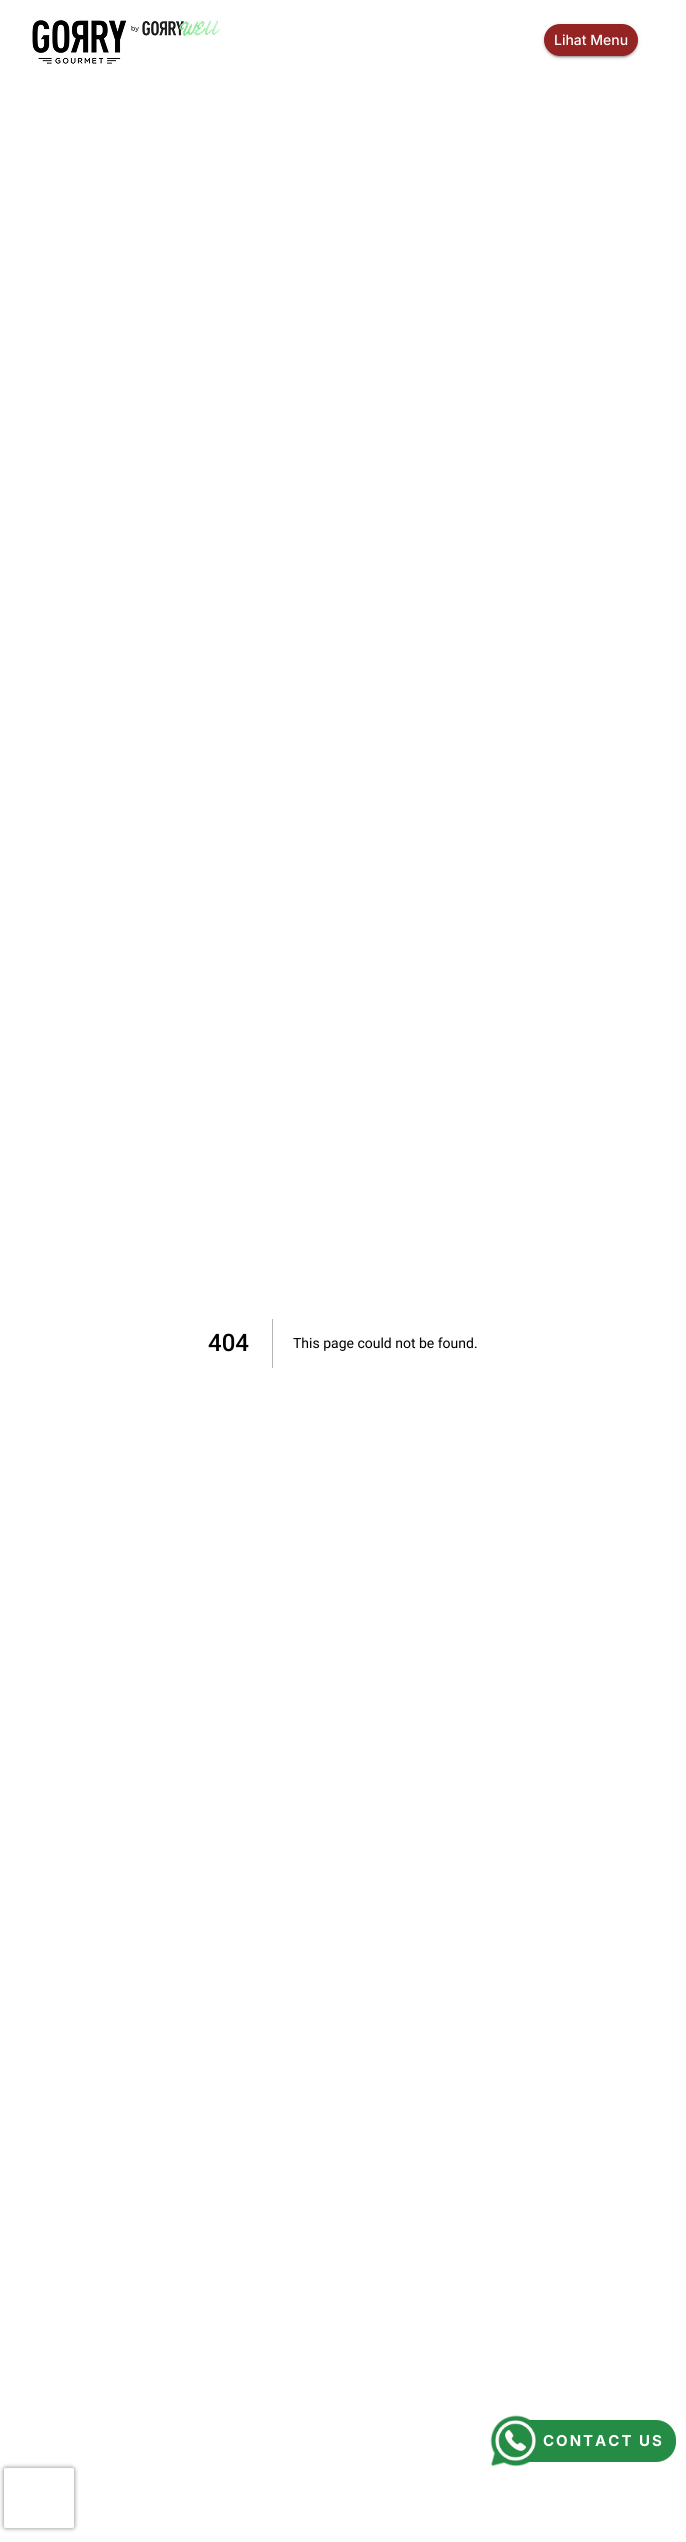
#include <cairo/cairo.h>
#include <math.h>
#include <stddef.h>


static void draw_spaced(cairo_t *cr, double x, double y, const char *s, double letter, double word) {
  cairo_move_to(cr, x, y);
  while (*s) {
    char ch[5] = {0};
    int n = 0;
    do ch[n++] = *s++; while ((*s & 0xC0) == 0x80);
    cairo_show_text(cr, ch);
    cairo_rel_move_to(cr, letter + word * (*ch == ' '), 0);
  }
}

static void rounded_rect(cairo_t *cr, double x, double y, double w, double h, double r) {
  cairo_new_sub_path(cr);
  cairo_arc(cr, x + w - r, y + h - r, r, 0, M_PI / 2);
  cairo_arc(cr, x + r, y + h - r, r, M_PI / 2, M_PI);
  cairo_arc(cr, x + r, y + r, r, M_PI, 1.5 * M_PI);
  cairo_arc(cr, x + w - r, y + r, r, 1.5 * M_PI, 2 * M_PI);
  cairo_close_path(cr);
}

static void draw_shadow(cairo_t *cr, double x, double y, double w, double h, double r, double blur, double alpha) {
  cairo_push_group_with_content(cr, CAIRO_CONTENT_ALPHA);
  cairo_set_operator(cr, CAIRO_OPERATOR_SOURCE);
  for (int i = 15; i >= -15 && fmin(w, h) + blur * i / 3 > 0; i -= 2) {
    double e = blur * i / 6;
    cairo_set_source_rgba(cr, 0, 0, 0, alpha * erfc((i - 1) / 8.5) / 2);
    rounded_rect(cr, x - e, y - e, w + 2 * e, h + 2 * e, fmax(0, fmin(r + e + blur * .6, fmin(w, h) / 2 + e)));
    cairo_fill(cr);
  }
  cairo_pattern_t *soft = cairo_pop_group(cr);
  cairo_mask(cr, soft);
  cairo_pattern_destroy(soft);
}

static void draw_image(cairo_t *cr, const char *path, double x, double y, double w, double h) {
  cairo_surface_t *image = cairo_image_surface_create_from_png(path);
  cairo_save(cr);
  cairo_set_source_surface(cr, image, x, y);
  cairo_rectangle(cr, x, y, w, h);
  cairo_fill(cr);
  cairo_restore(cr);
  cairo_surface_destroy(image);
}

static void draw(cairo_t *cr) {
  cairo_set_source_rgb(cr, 1, 1, 1);
  cairo_paint(cr);
  draw_image(cr, "images/1.png", 32, 20, 188, 44);
  cairo_set_source_rgb(cr, 0, 0, 0);
  draw_shadow(cr, 544, 25, 94, 32, 16, 2.5, 0.12);
  draw_shadow(cr, 544, 26, 94, 32, 16, 1, 0.14);
  draw_shadow(cr, 546, 29, 90, 28, 14, 0.5, 0.2);
  cairo_set_source_rgb(cr, 148 / 255.0, 36 / 255.0, 36 / 255.0);
  rounded_rect(cr, 544, 24, 94, 32, 16);
  cairo_fill(cr);
  cairo_set_source_rgb(cr, 179 / 255.0, 179 / 255.0, 179 / 255.0);
  cairo_rectangle(cr, 272, 1319, 1, 49);
  cairo_fill(cr);
  cairo_set_source_rgb(cr, 36 / 255.0, 140 / 255.0, 68 / 255.0);
  rounded_rect(cr, 506, 2420, 170, 42, 20);
  cairo_fill(cr);
  draw_image(cr, "images/2.png", 490, 2415, 41, 52);
  draw_image(cr, "images/3.png", 495, 2420, 41, 41);
  cairo_save(cr);
  cairo_set_fill_rule(cr, CAIRO_FILL_RULE_EVEN_ODD);
  cairo_new_path(cr);
  cairo_move_to(cr, 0, 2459);
  cairo_line_to(cr, 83, 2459);
  cairo_line_to(cr, 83, 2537);
  cairo_line_to(cr, 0, 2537);
  cairo_close_path(cr);
  cairo_move_to(cr, 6, 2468);
  cairo_line_to(cr, 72, 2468);
  cairo_curve_to(cr, 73, 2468, 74, 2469, 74, 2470);
  cairo_line_to(cr, 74, 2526);
  cairo_curve_to(cr, 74, 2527, 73, 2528, 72, 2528);
  cairo_line_to(cr, 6, 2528);
  cairo_curve_to(cr, 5, 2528, 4, 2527, 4, 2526);
  cairo_line_to(cr, 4, 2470);
  cairo_curve_to(cr, 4, 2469, 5, 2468, 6, 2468);
  cairo_close_path(cr);
  cairo_clip(cr);
  cairo_set_source_rgb(cr, 128 / 255.0, 128 / 255.0, 128 / 255.0);
  draw_shadow(cr, 4, 2468, 70, 60, 2, 2.5, 1);
  cairo_restore(cr);
  cairo_select_font_face(cr, "Inter Medium", CAIRO_FONT_SLANT_NORMAL, CAIRO_FONT_WEIGHT_NORMAL);
  cairo_set_font_size(cr, 14);
  cairo_set_source_rgb(cr, 1, 1, 1);
  cairo_move_to(cr, 554, 45);
  cairo_show_text(cr, "Lihat Menu");
  cairo_select_font_face(cr, "Roboto Medium", CAIRO_FONT_SLANT_NORMAL, CAIRO_FONT_WEIGHT_NORMAL);
  cairo_set_font_size(cr, 24);
  cairo_set_source_rgb(cr, 0, 0, 0);
  cairo_move_to(cr, 208, 1351);
  cairo_show_text(cr, "404");
  cairo_select_font_face(cr, "Roboto", CAIRO_FONT_SLANT_NORMAL, CAIRO_FONT_WEIGHT_NORMAL);
  cairo_set_font_size(cr, 14);
  cairo_move_to(cr, 293, 1348);
  cairo_show_text(cr, "This page could not be found.");
  cairo_select_font_face(cr, "Inter", CAIRO_FONT_SLANT_NORMAL, CAIRO_FONT_WEIGHT_BOLD);
  cairo_set_font_size(cr, 15);
  cairo_set_source_rgb(cr, 1, 1, 1);
  draw_spaced(cr, 543, 2446, "CONTACT US", 2, 0);
}

int main(void) {
  cairo_surface_t *surface = cairo_image_surface_create(CAIRO_FORMAT_RGB24, 686, 2542);
  cairo_t *cr = cairo_create(surface);
  cairo_font_options_t *options = cairo_font_options_create();
  cairo_font_options_set_hint_metrics(options, CAIRO_HINT_METRICS_OFF);
  cairo_font_options_set_hint_style(options, CAIRO_HINT_STYLE_NONE);
  cairo_set_font_options(cr, options);
  cairo_set_miter_limit(cr, 4);
  draw(cr);
  cairo_surface_write_to_png(surface, "out.png");
  cairo_font_options_destroy(options);
  cairo_destroy(cr);
  cairo_surface_destroy(surface);
  return 0;
}
